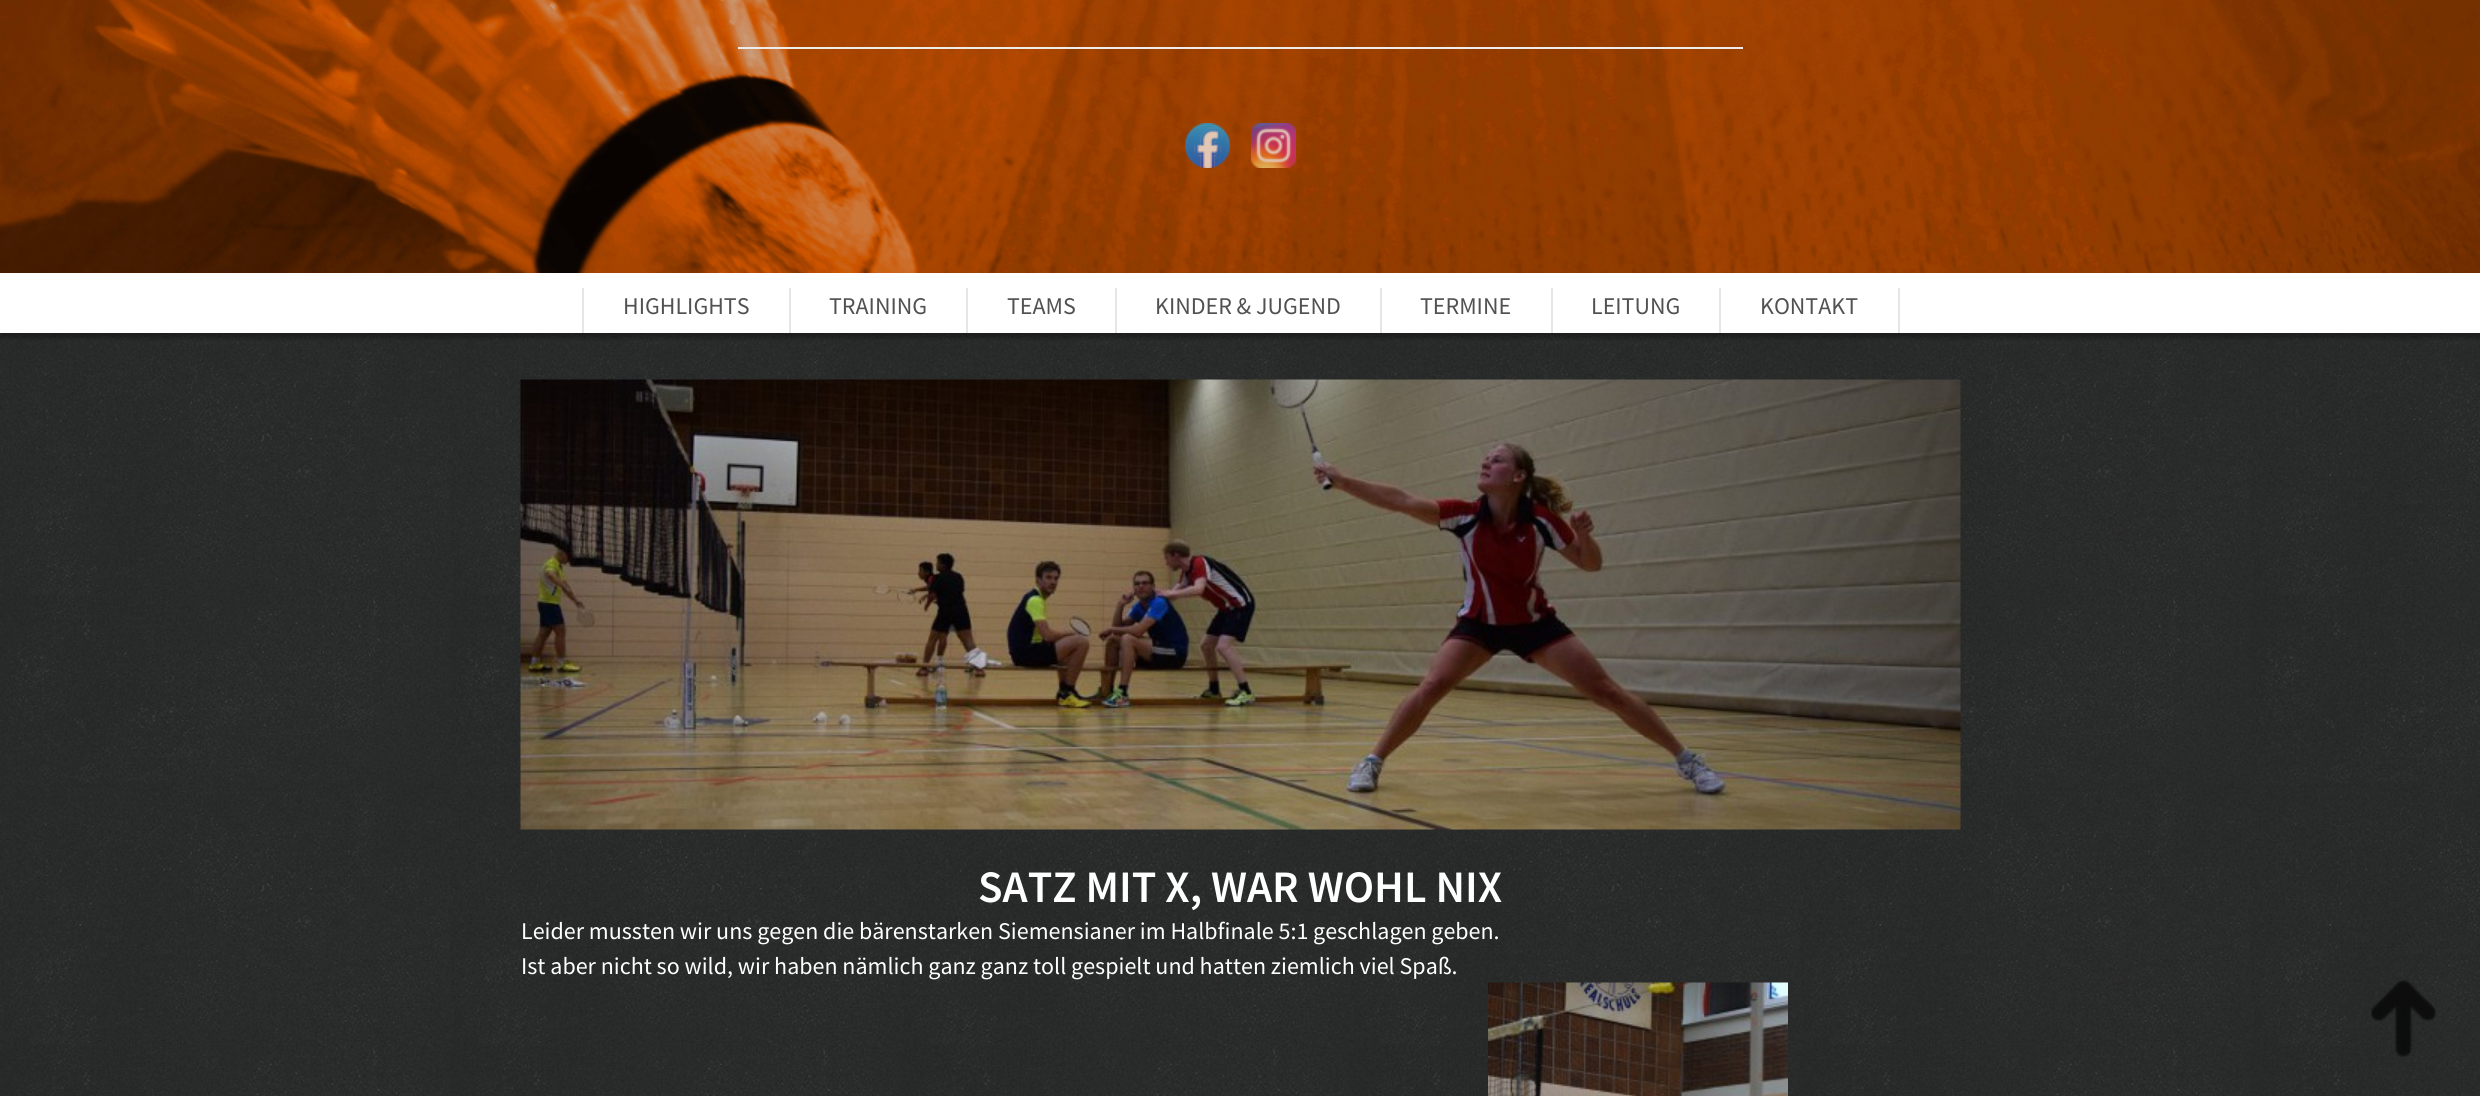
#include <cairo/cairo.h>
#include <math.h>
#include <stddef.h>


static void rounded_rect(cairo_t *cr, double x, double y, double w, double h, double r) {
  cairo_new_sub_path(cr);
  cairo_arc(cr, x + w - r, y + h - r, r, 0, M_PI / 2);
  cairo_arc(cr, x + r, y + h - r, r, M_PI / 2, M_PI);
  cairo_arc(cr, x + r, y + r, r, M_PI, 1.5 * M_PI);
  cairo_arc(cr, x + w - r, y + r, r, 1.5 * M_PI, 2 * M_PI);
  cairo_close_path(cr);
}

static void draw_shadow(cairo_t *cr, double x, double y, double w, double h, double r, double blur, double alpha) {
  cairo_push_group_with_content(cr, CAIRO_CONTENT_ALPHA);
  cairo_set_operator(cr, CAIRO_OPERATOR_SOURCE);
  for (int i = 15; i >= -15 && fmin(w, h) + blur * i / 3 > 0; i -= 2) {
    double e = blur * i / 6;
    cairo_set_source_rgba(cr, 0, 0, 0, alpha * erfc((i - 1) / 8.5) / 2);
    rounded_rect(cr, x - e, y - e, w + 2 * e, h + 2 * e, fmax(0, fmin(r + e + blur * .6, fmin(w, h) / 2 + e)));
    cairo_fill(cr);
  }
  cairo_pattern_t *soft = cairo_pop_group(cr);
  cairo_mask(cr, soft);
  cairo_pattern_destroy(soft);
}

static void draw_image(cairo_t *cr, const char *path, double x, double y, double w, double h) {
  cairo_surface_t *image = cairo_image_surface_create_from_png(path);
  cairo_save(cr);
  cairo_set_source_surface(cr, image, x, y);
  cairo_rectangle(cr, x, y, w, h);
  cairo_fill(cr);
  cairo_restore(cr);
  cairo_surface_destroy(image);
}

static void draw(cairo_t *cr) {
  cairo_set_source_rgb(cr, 1, 1, 1);
  cairo_paint(cr);
  draw_image(cr, "images/1.png", 0, 0, 2480, 273);
  cairo_set_source_rgb(cr, 237 / 255.0, 237 / 255.0, 237 / 255.0);
  cairo_rectangle(cr, 738, 47, 1005, 2);
  cairo_fill(cr);
  draw_image(cr, "images/2.png", 1185, 123, 45, 45);
  draw_image(cr, "images/3.png", 1251, 123, 45, 45);
  draw_image(cr, "images/4.png", 0, 333, 2480, 763);
  cairo_set_source_rgb(cr, 0, 0, 0);
  draw_shadow(cr, 0, 278, 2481, 60, 0, 2, 0.3);
  cairo_set_source_rgb(cr, 1, 1, 1);
  cairo_rectangle(cr, 0, 274, 2480, 59);
  cairo_fill(cr);
  cairo_set_source_rgb(cr, 230 / 255.0, 230 / 255.0, 230 / 255.0);
  cairo_rectangle(cr, 789, 288, 2, 45);
  cairo_fill(cr);
  cairo_rectangle(cr, 582, 288, 2, 45);
  cairo_fill(cr);
  cairo_rectangle(cr, 966, 288, 2, 45);
  cairo_fill(cr);
  cairo_rectangle(cr, 1115, 288, 2, 45);
  cairo_fill(cr);
  cairo_rectangle(cr, 1380, 288, 2, 45);
  cairo_fill(cr);
  cairo_rectangle(cr, 1551, 288, 2, 45);
  cairo_fill(cr);
  cairo_rectangle(cr, 1719, 288, 2, 45);
  cairo_fill(cr);
  cairo_rectangle(cr, 1898, 288, 2, 45);
  cairo_fill(cr);
  draw_image(cr, "images/5.png", 520, 379, 1441, 451);
  draw_image(cr, "images/6.png", 1488, 982, 300, 114);
  draw_image(cr, "images/7.png", 2371, 980, 65, 77);
  cairo_select_font_face(cr, "Source Sans Pro", CAIRO_FONT_SLANT_NORMAL, CAIRO_FONT_WEIGHT_NORMAL);
  cairo_set_font_size(cr, 24);
  cairo_set_source_rgb(cr, 81 / 255.0, 81 / 255.0, 81 / 255.0);
  cairo_move_to(cr, 623, 314);
  cairo_show_text(cr, "HIGHLIGHTS");
  cairo_move_to(cr, 829, 314);
  cairo_show_text(cr, "TRAINING");
  cairo_move_to(cr, 1007, 314);
  cairo_show_text(cr, "TEAMS");
  cairo_move_to(cr, 1155, 314);
  cairo_show_text(cr, "KINDER & JUGEND");
  cairo_move_to(cr, 1420, 314);
  cairo_show_text(cr, "TERMINE");
  cairo_move_to(cr, 1591, 314);
  cairo_show_text(cr, "LEITUNG");
  cairo_move_to(cr, 1760, 314);
  cairo_show_text(cr, "KONTAKT");
  cairo_select_font_face(cr, "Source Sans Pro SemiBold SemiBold", CAIRO_FONT_SLANT_NORMAL, CAIRO_FONT_WEIGHT_NORMAL);
  cairo_set_font_size(cr, 45);
  cairo_set_source_rgb(cr, 1, 1, 1);
  cairo_move_to(cr, 978, 902);
  cairo_show_text(cr, "SATZ MIT X, WAR WOHL NIX");
  cairo_select_font_face(cr, "Source Sans Pro", CAIRO_FONT_SLANT_NORMAL, CAIRO_FONT_WEIGHT_NORMAL);
  cairo_set_font_size(cr, 24);
  cairo_move_to(cr, 521, 939);
  cairo_show_text(cr, "Leider mussten wir uns gegen die bärenstarken Siemensianer im Halbfinale 5:1 geschlagen geben.");
  cairo_move_to(cr, 521, 974);
  cairo_show_text(cr, "Ist aber nicht so wild, wir haben nämlich ganz ganz toll gespielt und hatten ziemlich viel Spaß.");
}

int main(void) {
  cairo_surface_t *surface = cairo_image_surface_create(CAIRO_FORMAT_RGB24, 2480, 1096);
  cairo_t *cr = cairo_create(surface);
  cairo_font_options_t *options = cairo_font_options_create();
  cairo_font_options_set_hint_metrics(options, CAIRO_HINT_METRICS_OFF);
  cairo_font_options_set_hint_style(options, CAIRO_HINT_STYLE_NONE);
  cairo_set_font_options(cr, options);
  cairo_set_miter_limit(cr, 4);
  draw(cr);
  cairo_surface_write_to_png(surface, "out.png");
  cairo_font_options_destroy(options);
  cairo_destroy(cr);
  cairo_surface_destroy(surface);
  return 0;
}
